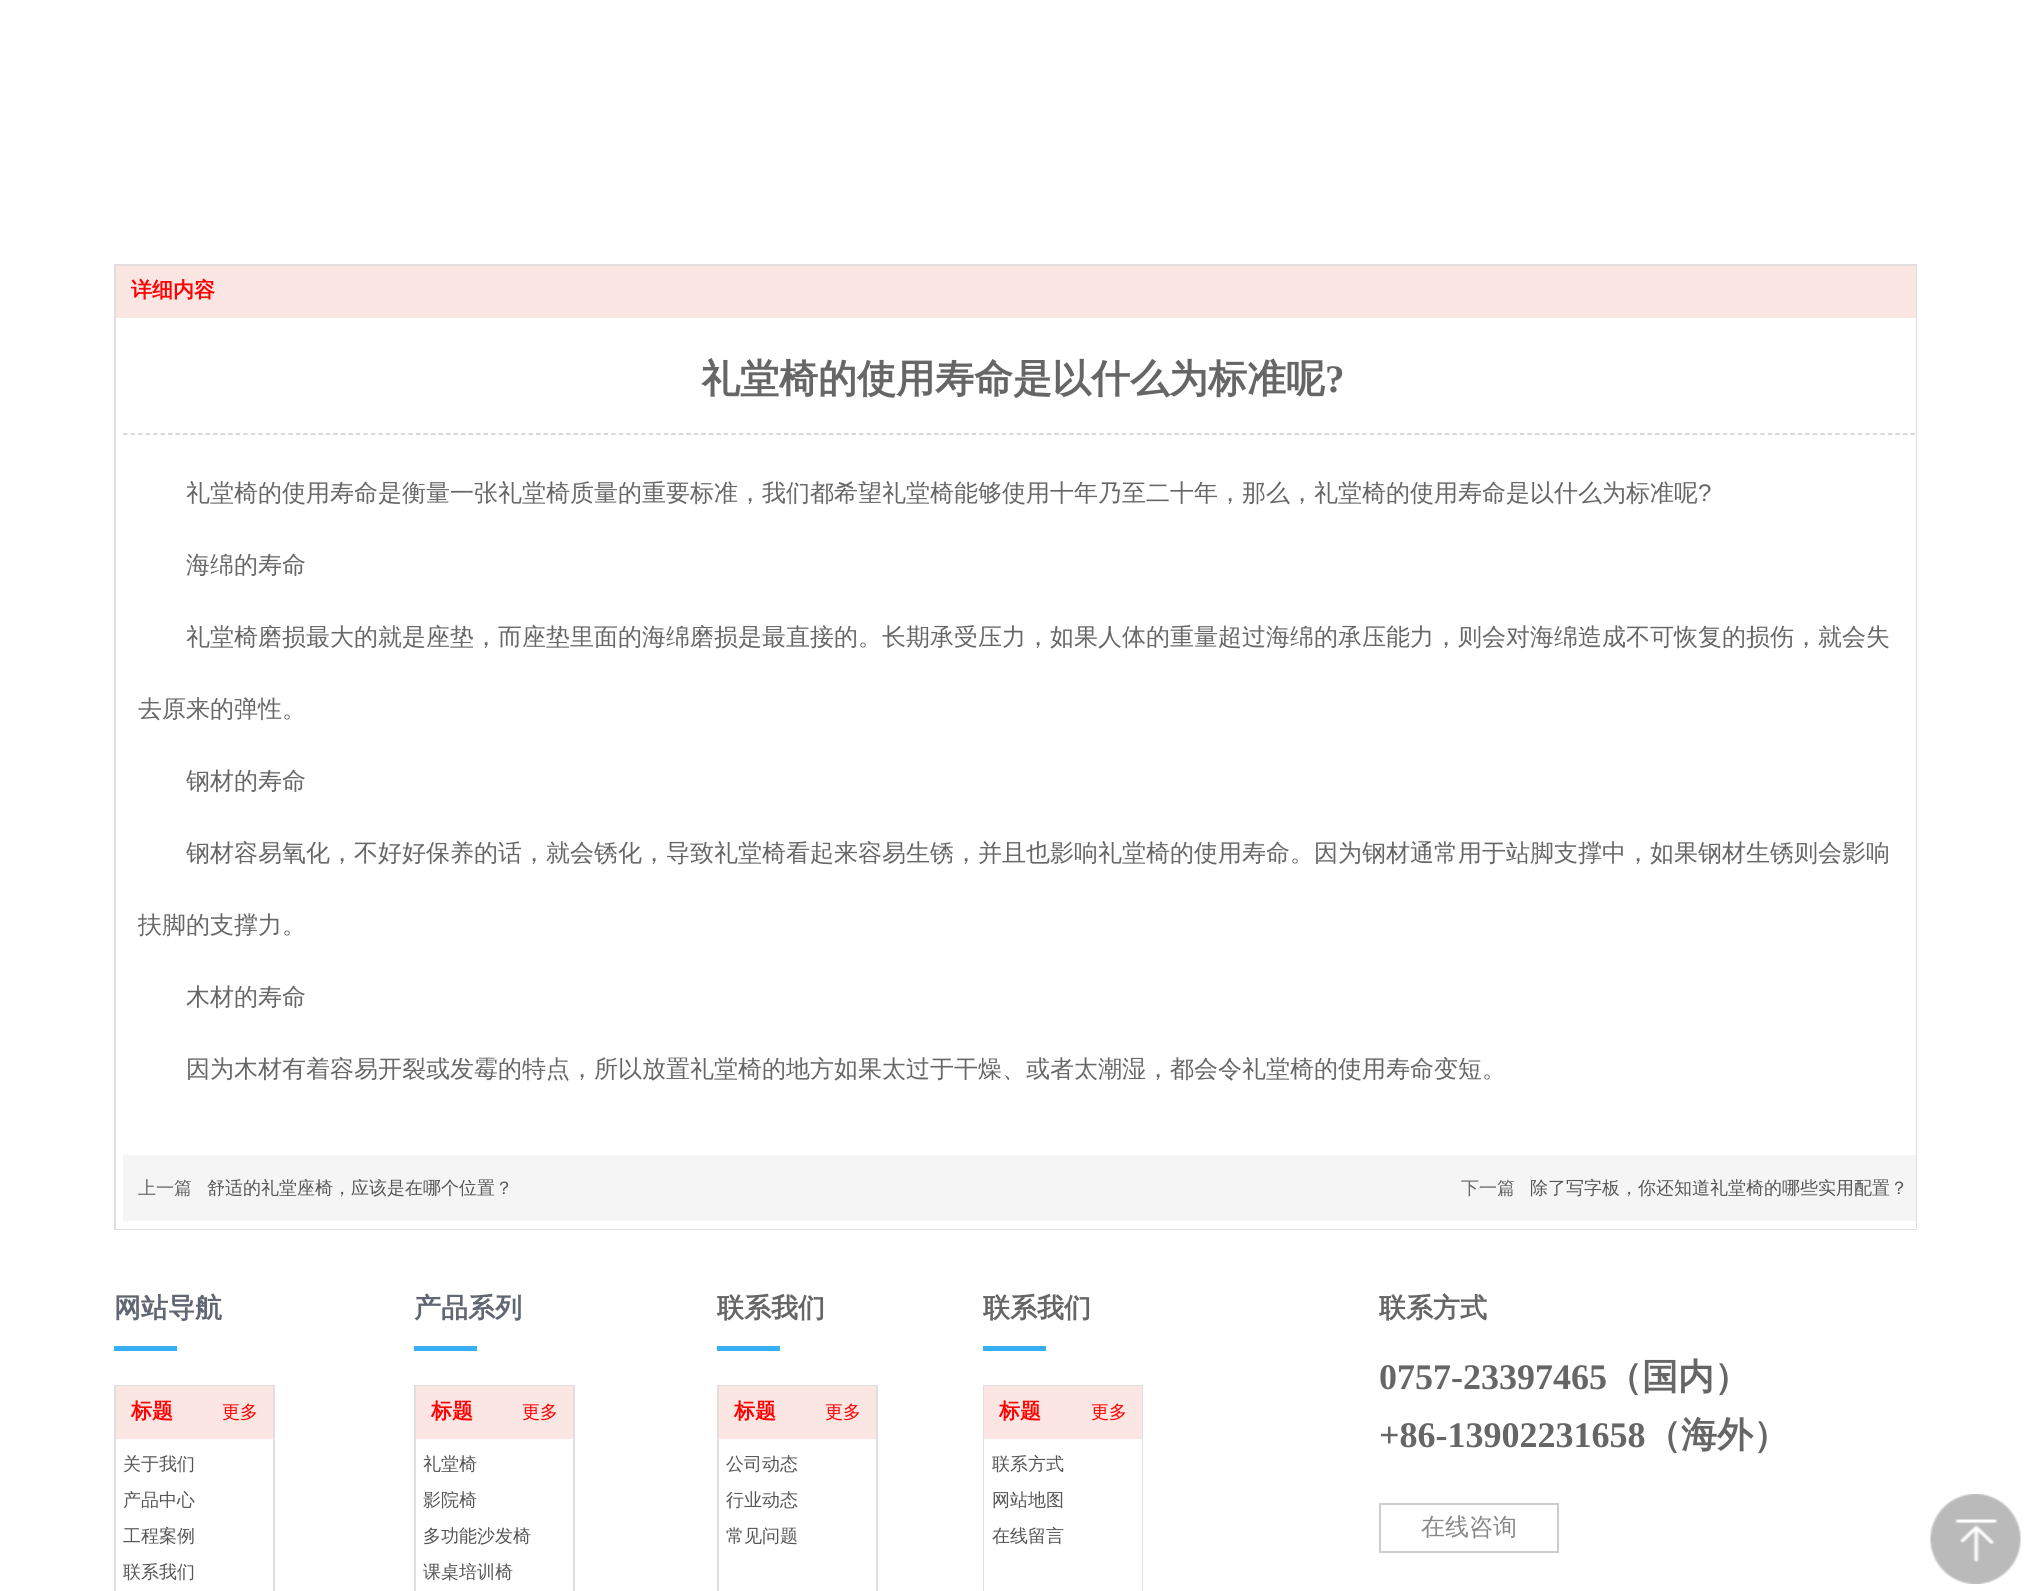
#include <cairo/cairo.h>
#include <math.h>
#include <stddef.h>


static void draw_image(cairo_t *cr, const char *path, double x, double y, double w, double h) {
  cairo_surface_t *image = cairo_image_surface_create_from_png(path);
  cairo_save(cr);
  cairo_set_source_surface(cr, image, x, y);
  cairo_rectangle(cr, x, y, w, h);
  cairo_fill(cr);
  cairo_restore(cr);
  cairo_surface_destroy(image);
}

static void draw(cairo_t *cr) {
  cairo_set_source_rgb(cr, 1, 1, 1);
  cairo_paint(cr);
  cairo_rectangle(cr, 115, 265, 1801, 964);
  cairo_set_source_rgb(cr, 224 / 255.0, 223 / 255.0, 221 / 255.0);
  cairo_stroke(cr);
  cairo_set_source_rgb(cr, 251 / 255.0, 230 / 255.0, 227 / 255.0);
  cairo_rectangle(cr, 116, 266, 1800, 52);
  cairo_fill(cr);
  cairo_set_source_rgb(cr, 1, 1, 1);
  cairo_rectangle(cr, 116, 318, 1800, 911);
  cairo_fill(cr);
  cairo_save(cr);
  cairo_rectangle(cr, 123, 326, 1793, 895);
  cairo_clip(cr);
  cairo_new_path(cr);
  cairo_move_to(cr, 123, 434);
  cairo_line_to(cr, 1923, 434);
  cairo_set_source_rgb(cr, 204 / 255.0, 204 / 255.0, 204 / 255.0);
  cairo_set_line_width(cr, 1.5);
  cairo_set_dash(cr, (double[]){4.5, 3.01}, 2, 0);
  cairo_stroke(cr);
  cairo_restore(cr);
  cairo_set_source_rgb(cr, 245 / 255.0, 245 / 255.0, 245 / 255.0);
  cairo_rectangle(cr, 123, 1155, 1793, 66);
  cairo_fill(cr);
  cairo_set_source_rgb(cr, 54 / 255.0, 176 / 255.0, 243 / 255.0);
  cairo_rectangle(cr, 114, 1346, 63, 5);
  cairo_fill(cr);
  cairo_rectangle(cr, 414, 1346, 63, 5);
  cairo_fill(cr);
  cairo_rectangle(cr, 717, 1346, 63, 5);
  cairo_fill(cr);
  cairo_rectangle(cr, 983, 1346, 63, 5);
  cairo_fill(cr);
  cairo_rectangle(cr, 115, 1386, 159, 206);
  cairo_set_source_rgb(cr, 224 / 255.0, 223 / 255.0, 221 / 255.0);
  cairo_stroke(cr);
  cairo_set_source_rgb(cr, 251 / 255.0, 230 / 255.0, 227 / 255.0);
  cairo_rectangle(cr, 116, 1386, 157, 53);
  cairo_fill(cr);
  cairo_rectangle(cr, 415, 1386, 159, 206);
  cairo_set_source_rgb(cr, 224 / 255.0, 223 / 255.0, 221 / 255.0);
  cairo_stroke(cr);
  cairo_set_source_rgb(cr, 251 / 255.0, 230 / 255.0, 227 / 255.0);
  cairo_rectangle(cr, 416, 1386, 157, 53);
  cairo_fill(cr);
  cairo_rectangle(cr, 718, 1386, 159, 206);
  cairo_set_source_rgb(cr, 224 / 255.0, 223 / 255.0, 221 / 255.0);
  cairo_stroke(cr);
  cairo_set_source_rgb(cr, 251 / 255.0, 230 / 255.0, 227 / 255.0);
  cairo_rectangle(cr, 719, 1386, 157, 53);
  cairo_fill(cr);
  cairo_rectangle(cr, 984, 1386, 158, 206);
  cairo_set_source_rgb(cr, 224 / 255.0, 223 / 255.0, 221 / 255.0);
  cairo_stroke(cr);
  cairo_set_source_rgb(cr, 251 / 255.0, 230 / 255.0, 227 / 255.0);
  cairo_rectangle(cr, 984, 1386, 158, 53);
  cairo_fill(cr);
  cairo_set_source_rgb(cr, 1, 1, 1);
  cairo_rectangle(cr, 984, 1439, 158, 152);
  cairo_fill(cr);
  cairo_rectangle(cr, 1380, 1504, 178, 48);
  cairo_set_source_rgb(cr, 204 / 255.0, 204 / 255.0, 204 / 255.0);
  cairo_stroke(cr);
  draw_image(cr, "images/1.png", 1930, 1494, 91, 90);
  cairo_select_font_face(cr, "WenQuanYi Zen Hei", CAIRO_FONT_SLANT_NORMAL, CAIRO_FONT_WEIGHT_BOLD);
  cairo_set_font_size(cr, 21);
  cairo_set_source_rgb(cr, 1, 1 / 255.0, 1 / 255.0);
  cairo_move_to(cr, 131, 297);
  cairo_show_text(cr, "详细内容");
  cairo_set_font_size(cr, 39);
  cairo_set_source_rgb(cr, 102 / 255.0, 102 / 255.0, 102 / 255.0);
  cairo_move_to(cr, 701, 392);
  cairo_show_text(cr, "礼堂椅的使用寿命是以什么为标准呢");
  cairo_select_font_face(cr, "Liberation Serif", CAIRO_FONT_SLANT_NORMAL, CAIRO_FONT_WEIGHT_BOLD);
  cairo_move_to(cr, 1325, 392);
  cairo_show_text(cr, "?");
  cairo_select_font_face(cr, "WenQuanYi Zen Hei Medium", CAIRO_FONT_SLANT_NORMAL, CAIRO_FONT_WEIGHT_NORMAL);
  cairo_set_font_size(cr, 24);
  cairo_move_to(cr, 186, 501);
  cairo_show_text(cr, "礼堂椅的使用寿命是衡量一张礼堂椅质量的重要标准，我们都希望礼堂椅能够使用十年乃至二十年，那么，礼堂椅的使用寿命是以什么为标准呢");
  cairo_select_font_face(cr, "Liberation Sans", CAIRO_FONT_SLANT_NORMAL, CAIRO_FONT_WEIGHT_NORMAL);
  cairo_move_to(cr, 1698, 501);
  cairo_show_text(cr, "?");
  cairo_select_font_face(cr, "WenQuanYi Zen Hei Medium", CAIRO_FONT_SLANT_NORMAL, CAIRO_FONT_WEIGHT_NORMAL);
  cairo_move_to(cr, 186, 573);
  cairo_show_text(cr, "海绵的寿命");
  cairo_move_to(cr, 186, 645);
  cairo_show_text(cr, "礼堂椅磨损最大的就是座垫，而座垫里面的海绵磨损是最直接的。长期承受压力，如果人体的重量超过海绵的承压能力，则会对海绵造成不可恢复的损伤，就会失");
  cairo_move_to(cr, 138, 717);
  cairo_show_text(cr, "去原来的弹性。");
  cairo_move_to(cr, 186, 789);
  cairo_show_text(cr, "钢材的寿命");
  cairo_move_to(cr, 186, 861);
  cairo_show_text(cr, "钢材容易氧化，不好好保养的话，就会锈化，导致礼堂椅看起来容易生锈，并且也影响礼堂椅的使用寿命。因为钢材通常用于站脚支撑中，如果钢材生锈则会影响");
  cairo_move_to(cr, 138, 933);
  cairo_show_text(cr, "扶脚的支撑力。");
  cairo_move_to(cr, 186, 1005);
  cairo_show_text(cr, "木材的寿命");
  cairo_move_to(cr, 186, 1077);
  cairo_show_text(cr, "因为木材有着容易开裂或发霉的特点，所以放置礼堂椅的地方如果太过于干燥、或者太潮湿，都会令礼堂椅的使用寿命变短。");
  cairo_set_font_size(cr, 18);
  cairo_move_to(cr, 138, 1194);
  cairo_show_text(cr, "上一篇");
  cairo_set_source_rgb(cr, 85 / 255.0, 85 / 255.0, 85 / 255.0);
  cairo_move_to(cr, 207, 1194);
  cairo_show_text(cr, "舒适的礼堂座椅，应该是在哪个位置？");
  cairo_set_source_rgb(cr, 102 / 255.0, 102 / 255.0, 102 / 255.0);
  cairo_move_to(cr, 1461, 1194);
  cairo_show_text(cr, "下一篇");
  cairo_set_source_rgb(cr, 85 / 255.0, 85 / 255.0, 85 / 255.0);
  cairo_move_to(cr, 1530, 1194);
  cairo_show_text(cr, "除了写字板，你还知道礼堂椅的哪些实用配置？");
  cairo_select_font_face(cr, "WenQuanYi Zen Hei", CAIRO_FONT_SLANT_NORMAL, CAIRO_FONT_WEIGHT_BOLD);
  cairo_set_font_size(cr, 27);
  cairo_set_source_rgb(cr, 96 / 255.0, 103 / 255.0, 114 / 255.0);
  cairo_move_to(cr, 114, 1317);
  cairo_show_text(cr, "网站导航");
  cairo_move_to(cr, 414, 1317);
  cairo_show_text(cr, "产品系列");
  cairo_set_source_rgb(cr, 102 / 255.0, 102 / 255.0, 102 / 255.0);
  cairo_move_to(cr, 717, 1317);
  cairo_show_text(cr, "联系我们");
  cairo_save(cr);
  cairo_rectangle(cr, 983, 1292, 138, 43);
  cairo_clip(cr);
  cairo_move_to(cr, 983, 1317);
  cairo_show_text(cr, "联系我们");
  cairo_restore(cr);
  cairo_save(cr);
  cairo_rectangle(cr, 1379, 1292, 138, 43);
  cairo_clip(cr);
  cairo_move_to(cr, 1379, 1317);
  cairo_show_text(cr, "联系方式");
  cairo_restore(cr);
  cairo_set_font_size(cr, 21);
  cairo_set_source_rgb(cr, 1, 1 / 255.0, 1 / 255.0);
  cairo_move_to(cr, 131, 1418);
  cairo_show_text(cr, "标题");
  cairo_select_font_face(cr, "WenQuanYi Zen Hei Medium", CAIRO_FONT_SLANT_NORMAL, CAIRO_FONT_WEIGHT_NORMAL);
  cairo_set_font_size(cr, 18);
  cairo_move_to(cr, 222, 1418);
  cairo_show_text(cr, "更多");
  cairo_set_source_rgb(cr, 85 / 255.0, 85 / 255.0, 85 / 255.0);
  cairo_move_to(cr, 123, 1470);
  cairo_show_text(cr, "关于我们");
  cairo_move_to(cr, 123, 1506);
  cairo_show_text(cr, "产品中心");
  cairo_move_to(cr, 123, 1542);
  cairo_show_text(cr, "工程案例");
  cairo_move_to(cr, 123, 1578);
  cairo_show_text(cr, "联系我们");
  cairo_select_font_face(cr, "WenQuanYi Zen Hei", CAIRO_FONT_SLANT_NORMAL, CAIRO_FONT_WEIGHT_BOLD);
  cairo_set_font_size(cr, 21);
  cairo_set_source_rgb(cr, 1, 1 / 255.0, 1 / 255.0);
  cairo_move_to(cr, 431, 1418);
  cairo_show_text(cr, "标题");
  cairo_select_font_face(cr, "WenQuanYi Zen Hei Medium", CAIRO_FONT_SLANT_NORMAL, CAIRO_FONT_WEIGHT_NORMAL);
  cairo_set_font_size(cr, 18);
  cairo_move_to(cr, 522, 1418);
  cairo_show_text(cr, "更多");
  cairo_set_source_rgb(cr, 85 / 255.0, 85 / 255.0, 85 / 255.0);
  cairo_move_to(cr, 423, 1470);
  cairo_show_text(cr, "礼堂椅");
  cairo_move_to(cr, 423, 1506);
  cairo_show_text(cr, "影院椅");
  cairo_move_to(cr, 423, 1542);
  cairo_show_text(cr, "多功能沙发椅");
  cairo_move_to(cr, 423, 1578);
  cairo_show_text(cr, "课桌培训椅");
  cairo_select_font_face(cr, "WenQuanYi Zen Hei", CAIRO_FONT_SLANT_NORMAL, CAIRO_FONT_WEIGHT_BOLD);
  cairo_set_font_size(cr, 21);
  cairo_set_source_rgb(cr, 1, 1 / 255.0, 1 / 255.0);
  cairo_move_to(cr, 734, 1418);
  cairo_show_text(cr, "标题");
  cairo_select_font_face(cr, "WenQuanYi Zen Hei Medium", CAIRO_FONT_SLANT_NORMAL, CAIRO_FONT_WEIGHT_NORMAL);
  cairo_set_font_size(cr, 18);
  cairo_move_to(cr, 825, 1418);
  cairo_show_text(cr, "更多");
  cairo_set_source_rgb(cr, 85 / 255.0, 85 / 255.0, 85 / 255.0);
  cairo_move_to(cr, 726, 1470);
  cairo_show_text(cr, "公司动态");
  cairo_move_to(cr, 726, 1506);
  cairo_show_text(cr, "行业动态");
  cairo_move_to(cr, 726, 1542);
  cairo_show_text(cr, "常见问题");
  cairo_select_font_face(cr, "WenQuanYi Zen Hei", CAIRO_FONT_SLANT_NORMAL, CAIRO_FONT_WEIGHT_BOLD);
  cairo_set_font_size(cr, 21);
  cairo_set_source_rgb(cr, 1, 1 / 255.0, 1 / 255.0);
  cairo_move_to(cr, 999, 1418);
  cairo_show_text(cr, "标题");
  cairo_select_font_face(cr, "WenQuanYi Zen Hei Medium", CAIRO_FONT_SLANT_NORMAL, CAIRO_FONT_WEIGHT_NORMAL);
  cairo_set_font_size(cr, 18);
  cairo_move_to(cr, 1091, 1418);
  cairo_show_text(cr, "更多");
  cairo_save(cr);
  cairo_rectangle(cr, 992, 1446, 150, 36);
  cairo_clip(cr);
  cairo_set_source_rgb(cr, 85 / 255.0, 85 / 255.0, 85 / 255.0);
  cairo_move_to(cr, 992, 1470);
  cairo_show_text(cr, "联系方式");
  cairo_restore(cr);
  cairo_set_source_rgb(cr, 85 / 255.0, 85 / 255.0, 85 / 255.0);
  cairo_move_to(cr, 992, 1506);
  cairo_show_text(cr, "网站地图");
  cairo_move_to(cr, 992, 1542);
  cairo_show_text(cr, "在线留言");
  cairo_select_font_face(cr, "Liberation Serif", CAIRO_FONT_SLANT_NORMAL, CAIRO_FONT_WEIGHT_BOLD);
  cairo_set_font_size(cr, 36);
  cairo_set_source_rgb(cr, 102 / 255.0, 102 / 255.0, 102 / 255.0);
  cairo_move_to(cr, 1379, 1389);
  cairo_show_text(cr, "0757-23397465");
  cairo_select_font_face(cr, "WenQuanYi Zen Hei", CAIRO_FONT_SLANT_NORMAL, CAIRO_FONT_WEIGHT_BOLD);
  cairo_move_to(cr, 1606, 1389);
  cairo_show_text(cr, "（国内）");
  cairo_select_font_face(cr, "Liberation Serif", CAIRO_FONT_SLANT_NORMAL, CAIRO_FONT_WEIGHT_BOLD);
  cairo_move_to(cr, 1379, 1447);
  cairo_show_text(cr, "+86-13902231658");
  cairo_select_font_face(cr, "WenQuanYi Zen Hei", CAIRO_FONT_SLANT_NORMAL, CAIRO_FONT_WEIGHT_BOLD);
  cairo_move_to(cr, 1645, 1447);
  cairo_show_text(cr, "（海外）");
  cairo_select_font_face(cr, "WenQuanYi Zen Hei Medium", CAIRO_FONT_SLANT_NORMAL, CAIRO_FONT_WEIGHT_NORMAL);
  cairo_set_font_size(cr, 24);
  cairo_set_source_rgb(cr, 136 / 255.0, 136 / 255.0, 136 / 255.0);
  cairo_move_to(cr, 1421, 1535);
  cairo_show_text(cr, "在线咨询");
}

int main(void) {
  cairo_surface_t *surface = cairo_image_surface_create(CAIRO_FORMAT_RGB24, 2027, 1591);
  cairo_t *cr = cairo_create(surface);
  cairo_font_options_t *options = cairo_font_options_create();
  cairo_font_options_set_hint_metrics(options, CAIRO_HINT_METRICS_OFF);
  cairo_font_options_set_hint_style(options, CAIRO_HINT_STYLE_NONE);
  cairo_set_font_options(cr, options);
  cairo_set_miter_limit(cr, 4);
  draw(cr);
  cairo_surface_write_to_png(surface, "out.png");
  cairo_font_options_destroy(options);
  cairo_destroy(cr);
  cairo_surface_destroy(surface);
  return 0;
}
